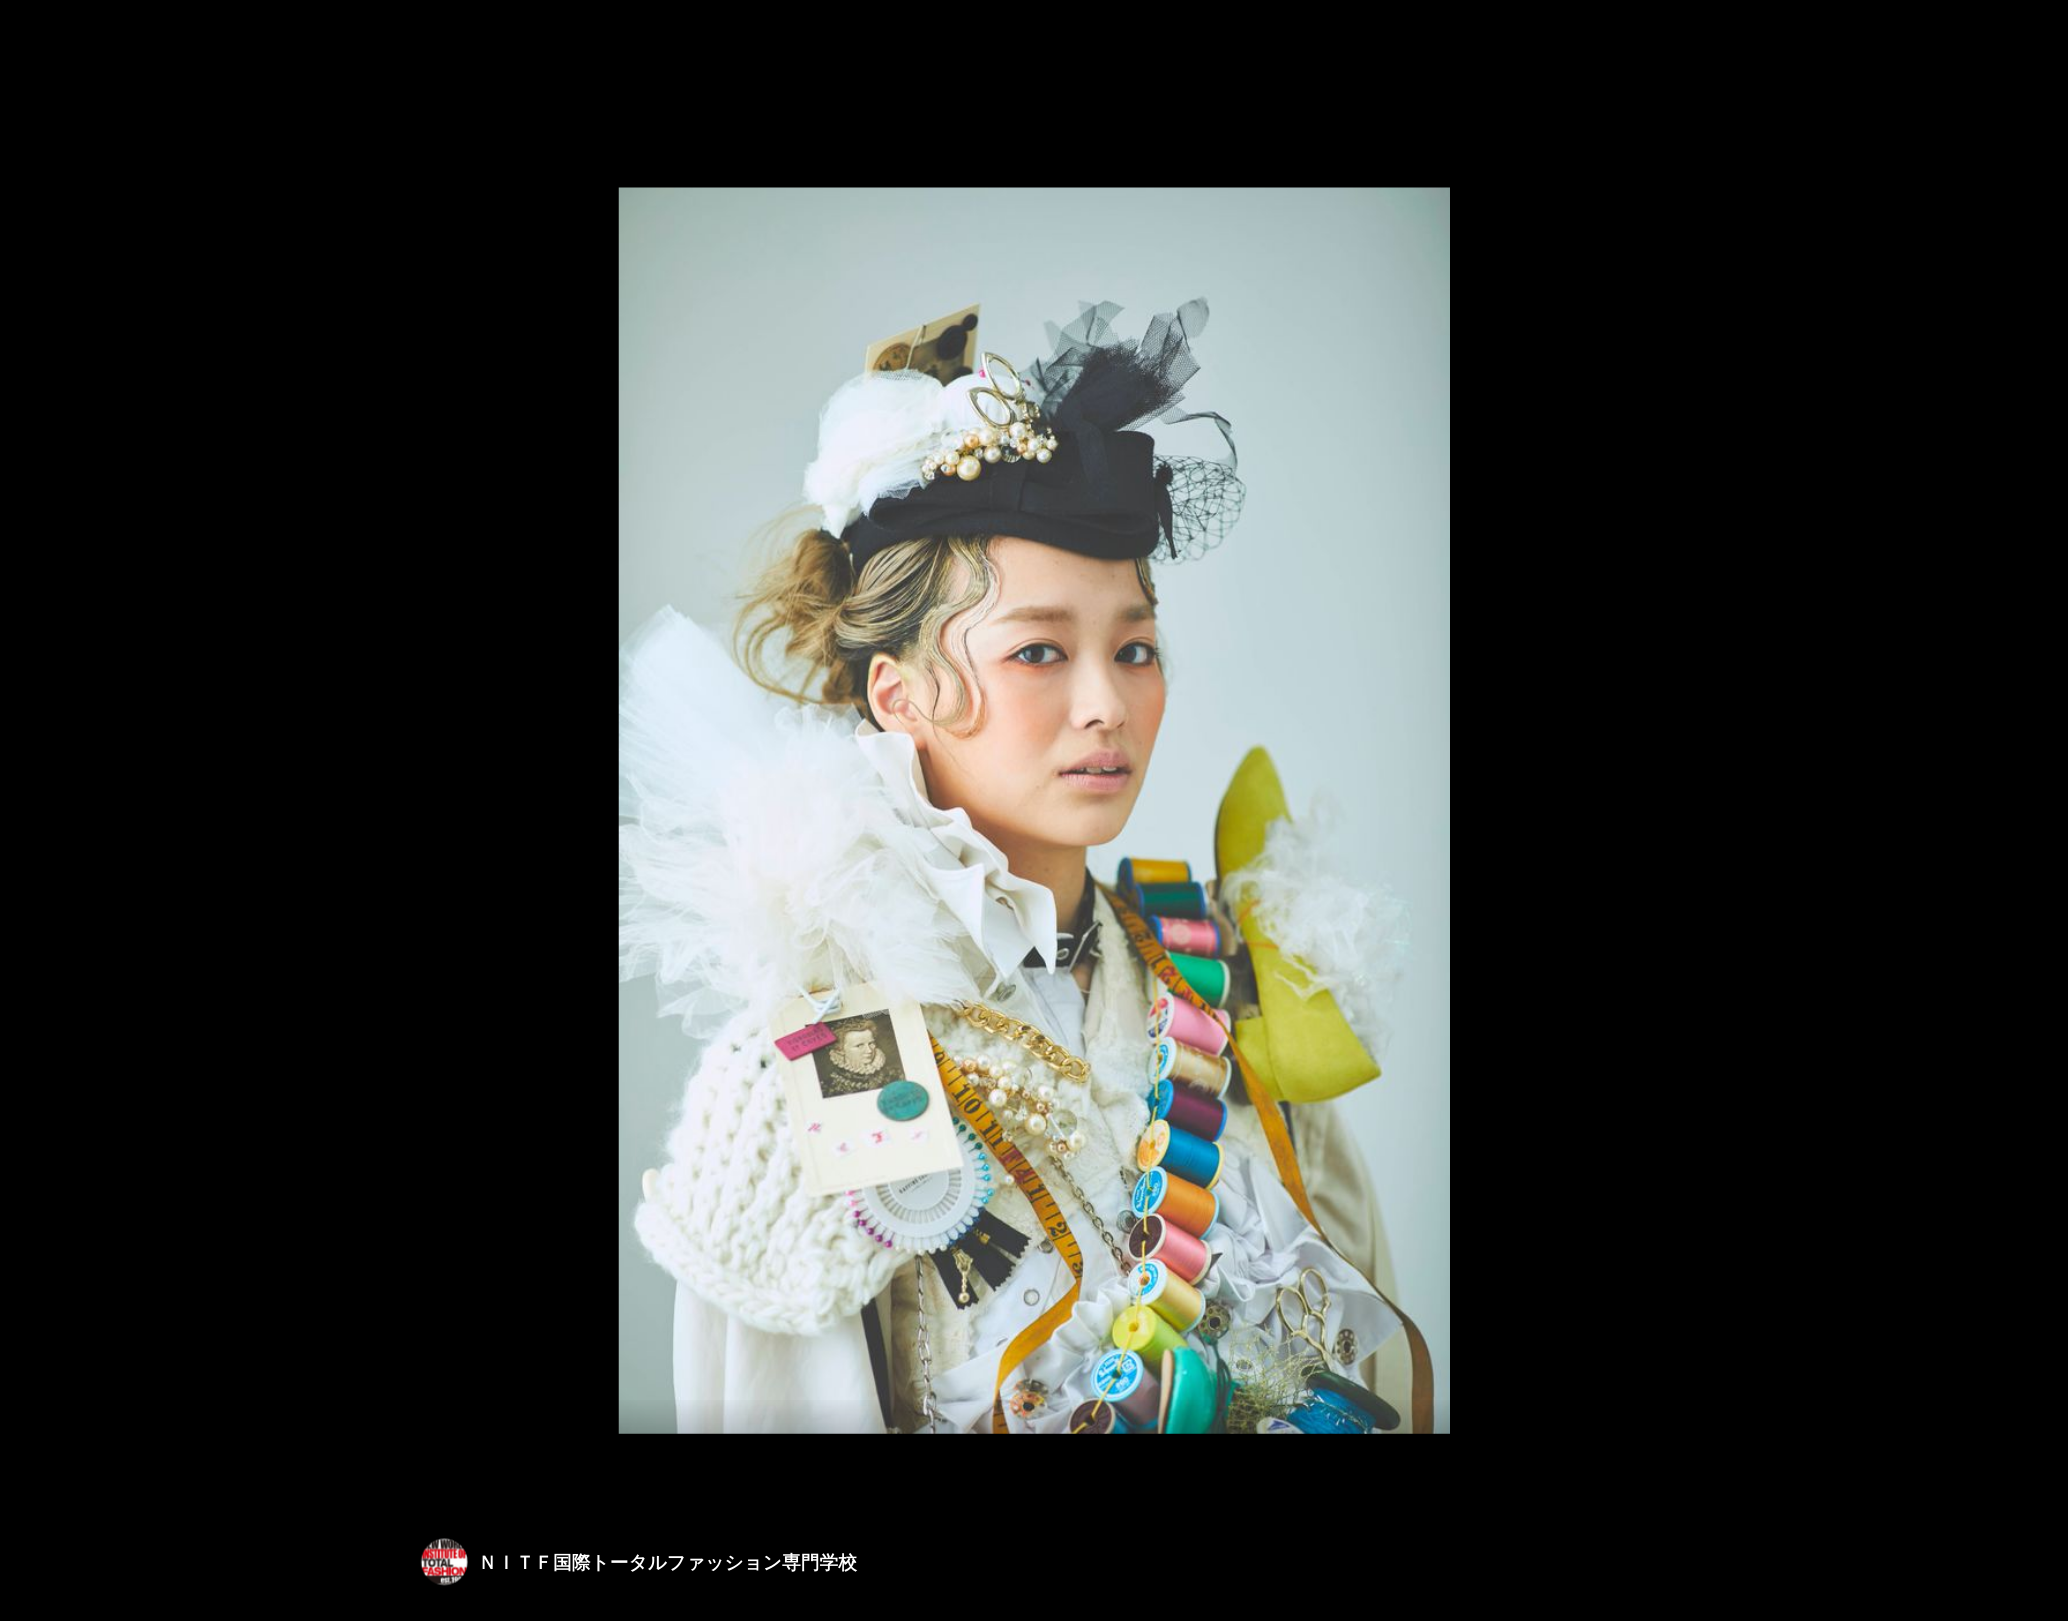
#include <cairo/cairo.h>
#include <math.h>
#include <stddef.h>


static void draw_image(cairo_t *cr, const char *path, double x, double y, double w, double h) {
  cairo_surface_t *image = cairo_image_surface_create_from_png(path);
  cairo_save(cr);
  cairo_set_source_surface(cr, image, x, y);
  cairo_rectangle(cr, x, y, w, h);
  cairo_fill(cr);
  cairo_restore(cr);
  cairo_surface_destroy(image);
}

static void draw(cairo_t *cr) {
  cairo_pattern_t *gradient;
  cairo_set_source_rgb(cr, 0, 0, 0);
  cairo_paint(cr);
  draw_image(cr, "images/1.png", 618, 187, 832, 1247);
  gradient = cairo_pattern_create_linear(1035, 1396, 1035, 1621);
  cairo_pattern_add_color_stop_rgba(gradient, 0, 0, 0, 0, 0);
  cairo_pattern_add_color_stop_rgba(gradient, 0.37, 0, 0, 0, 0.4);
  cairo_pattern_add_color_stop_rgba(gradient, 1, 0, 0, 0, 0.4);
  cairo_set_source(cr, gradient);
  cairo_pattern_destroy(gradient);
  cairo_rectangle(cr, 618, 1400, 832, 34);
  cairo_fill(cr);
  draw_image(cr, "images/2.png", 420, 1538, 48, 48);
  cairo_select_font_face(cr, "WenQuanYi Zen Hei", CAIRO_FONT_SLANT_NORMAL, CAIRO_FONT_WEIGHT_BOLD);
  cairo_set_font_size(cr, 18.75);
  cairo_set_source_rgb(cr, 1, 1, 1);
  cairo_move_to(cr, 478, 1569);
  cairo_show_text(cr, "ＮＩＴＦ国際トータルファッション専門学校");
}

int main(void) {
  cairo_surface_t *surface = cairo_image_surface_create(CAIRO_FORMAT_RGB24, 2068, 1621);
  cairo_t *cr = cairo_create(surface);
  cairo_font_options_t *options = cairo_font_options_create();
  cairo_font_options_set_hint_metrics(options, CAIRO_HINT_METRICS_OFF);
  cairo_font_options_set_hint_style(options, CAIRO_HINT_STYLE_NONE);
  cairo_set_font_options(cr, options);
  cairo_set_miter_limit(cr, 4);
  draw(cr);
  cairo_surface_write_to_png(surface, "out.png");
  cairo_font_options_destroy(options);
  cairo_destroy(cr);
  cairo_surface_destroy(surface);
  return 0;
}
